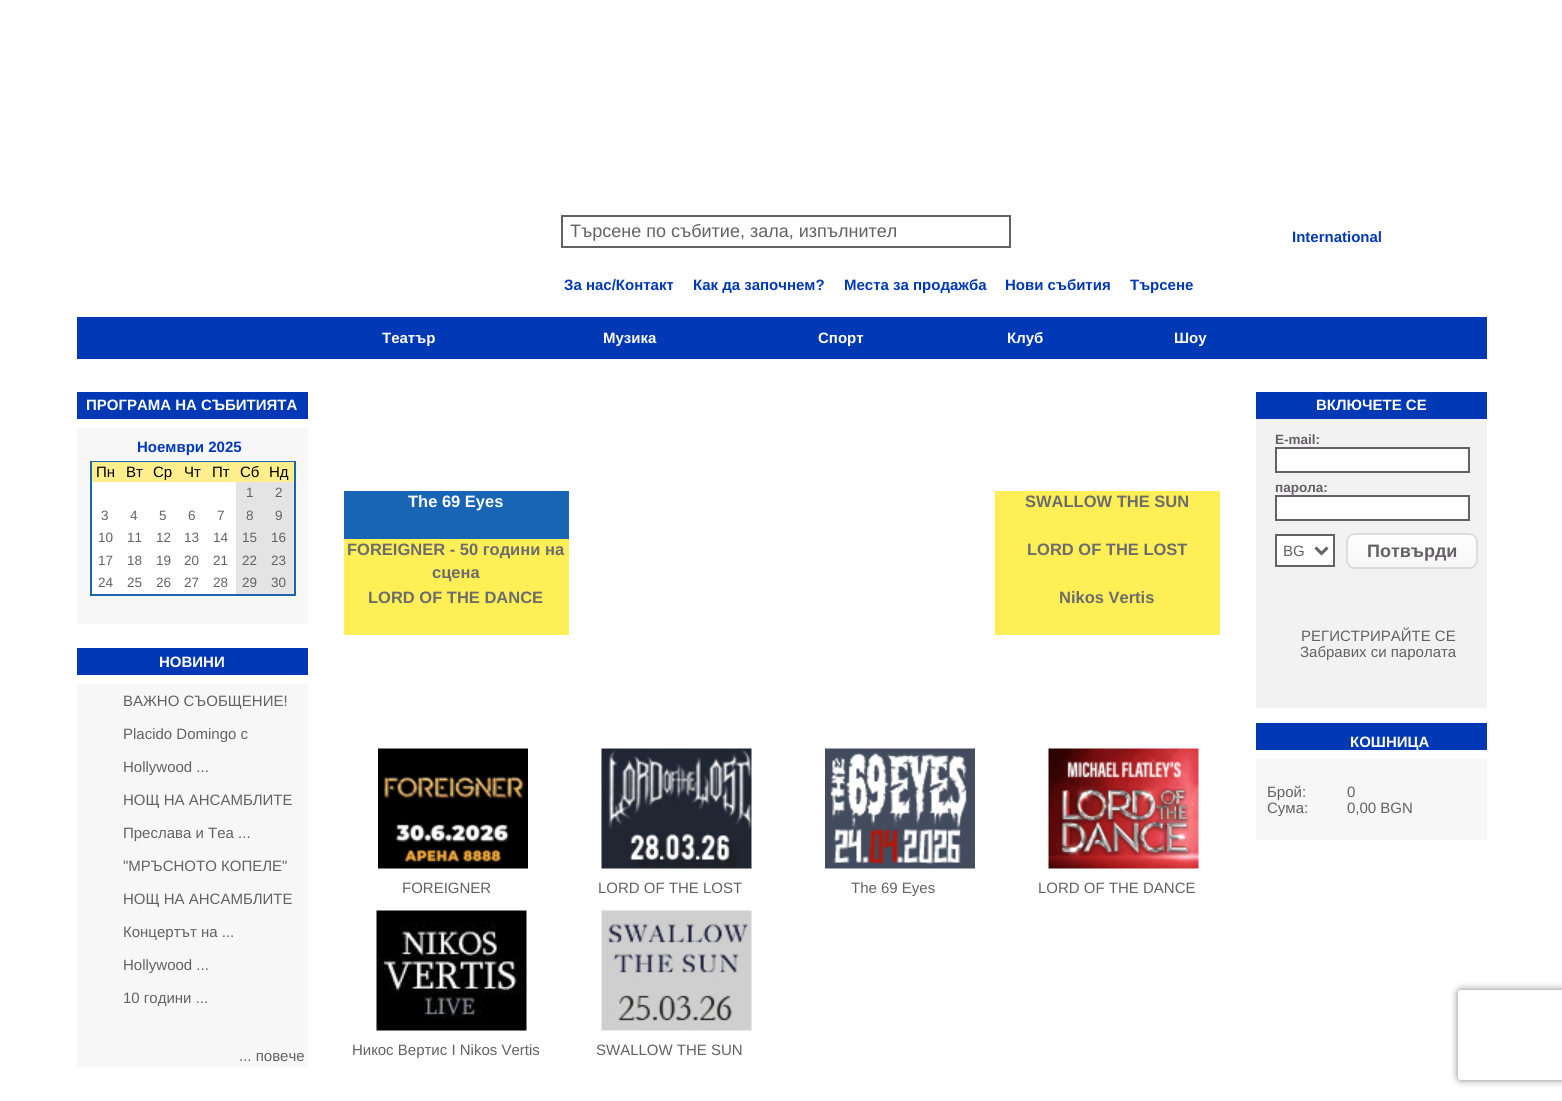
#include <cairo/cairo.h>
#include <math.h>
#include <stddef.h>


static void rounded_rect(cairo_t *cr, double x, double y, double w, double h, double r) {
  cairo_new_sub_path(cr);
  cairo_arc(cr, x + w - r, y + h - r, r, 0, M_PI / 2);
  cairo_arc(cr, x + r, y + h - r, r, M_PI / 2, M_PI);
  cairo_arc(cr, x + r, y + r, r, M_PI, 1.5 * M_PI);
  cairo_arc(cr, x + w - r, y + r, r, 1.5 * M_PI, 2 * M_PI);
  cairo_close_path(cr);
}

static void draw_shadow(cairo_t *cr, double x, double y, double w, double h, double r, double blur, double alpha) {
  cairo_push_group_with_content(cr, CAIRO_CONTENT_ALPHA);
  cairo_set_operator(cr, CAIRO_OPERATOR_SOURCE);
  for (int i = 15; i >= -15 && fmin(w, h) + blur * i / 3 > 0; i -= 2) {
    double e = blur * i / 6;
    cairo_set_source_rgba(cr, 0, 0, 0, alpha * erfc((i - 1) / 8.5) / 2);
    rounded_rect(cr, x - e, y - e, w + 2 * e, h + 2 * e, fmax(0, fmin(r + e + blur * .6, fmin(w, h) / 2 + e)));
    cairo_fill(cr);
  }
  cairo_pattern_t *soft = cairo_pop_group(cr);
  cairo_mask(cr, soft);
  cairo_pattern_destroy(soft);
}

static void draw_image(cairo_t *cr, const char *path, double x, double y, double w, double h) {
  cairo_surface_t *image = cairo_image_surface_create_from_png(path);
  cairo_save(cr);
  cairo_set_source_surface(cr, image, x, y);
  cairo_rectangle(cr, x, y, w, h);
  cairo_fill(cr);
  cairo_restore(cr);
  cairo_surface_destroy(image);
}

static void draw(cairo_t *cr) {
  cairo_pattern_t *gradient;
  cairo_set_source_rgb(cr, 1, 1, 1);
  cairo_paint(cr);
  cairo_rectangle(cr, 562, 216, 448, 31);
  cairo_set_source_rgb(cr, 99 / 255.0, 97 / 255.0, 99 / 255.0);
  cairo_stroke(cr);
  cairo_set_source_rgb(cr, 0, 56 / 255.0, 181 / 255.0);
  cairo_rectangle(cr, 77, 317, 1410, 42);
  cairo_fill(cr);
  cairo_rectangle(cr, 77, 392, 231, 27);
  cairo_fill(cr);
  cairo_set_source_rgb(cr, 247 / 255.0, 247 / 255.0, 247 / 255.0);
  cairo_rectangle(cr, 77, 428, 231, 196);
  cairo_fill(cr);
  cairo_rectangle(cr, 91, 462, 204, 133);
  cairo_set_source_rgb(cr, 26 / 255.0, 101 / 255.0, 172 / 255.0);
  cairo_stroke(cr);
  cairo_set_source_rgb(cr, 1, 239 / 255.0, 140 / 255.0);
  cairo_rectangle(cr, 92, 462, 202, 20);
  cairo_fill(cr);
  cairo_set_source_rgb(cr, 1, 1, 1);
  cairo_rectangle(cr, 92, 482, 144, 112);
  cairo_fill(cr);
  cairo_set_source_rgb(cr, 228 / 255.0, 228 / 255.0, 228 / 255.0);
  cairo_rectangle(cr, 236, 482, 58, 22);
  cairo_fill(cr);
  cairo_rectangle(cr, 236, 504, 58, 23);
  cairo_fill(cr);
  cairo_rectangle(cr, 236, 527, 58, 22);
  cairo_fill(cr);
  cairo_rectangle(cr, 236, 549, 58, 23);
  cairo_fill(cr);
  cairo_rectangle(cr, 236, 572, 58, 22);
  cairo_fill(cr);
  cairo_set_source_rgb(cr, 0, 56 / 255.0, 181 / 255.0);
  cairo_rectangle(cr, 77, 648, 231, 27);
  cairo_fill(cr);
  cairo_set_source_rgb(cr, 247 / 255.0, 247 / 255.0, 247 / 255.0);
  cairo_rectangle(cr, 77, 684, 231, 383);
  cairo_fill(cr);
  cairo_set_source_rgb(cr, 23 / 255.0, 101 / 255.0, 180 / 255.0);
  cairo_rectangle(cr, 344, 491, 225, 48);
  cairo_fill(cr);
  cairo_set_source_rgb(cr, 254 / 255.0, 239 / 255.0, 86 / 255.0);
  cairo_rectangle(cr, 344, 539, 225, 96);
  cairo_fill(cr);
  cairo_rectangle(cr, 995, 491, 225, 144);
  cairo_fill(cr);
  draw_image(cr, "images/1.png", 378, 748, 150, 121);
  draw_image(cr, "images/2.png", 601, 748, 151, 121);
  draw_image(cr, "images/3.png", 825, 748, 150, 121);
  draw_image(cr, "images/4.png", 1048, 748, 151, 121);
  draw_image(cr, "images/5.png", 376, 910, 151, 121);
  draw_image(cr, "images/6.png", 601, 910, 151, 121);
  cairo_set_source_rgb(cr, 242 / 255.0, 242 / 255.0, 242 / 255.0);
  cairo_rectangle(cr, 1256, 419, 231, 289);
  cairo_fill(cr);
  cairo_set_source_rgb(cr, 0, 56 / 255.0, 181 / 255.0);
  cairo_rectangle(cr, 1256, 392, 231, 27);
  cairo_fill(cr);
  cairo_set_source_rgb(cr, 1, 1, 1);
  cairo_rectangle(cr, 1276, 448, 193, 24);
  cairo_fill_preserve(cr);
  cairo_set_source_rgb(cr, 99 / 255.0, 97 / 255.0, 99 / 255.0);
  cairo_stroke(cr);
  cairo_set_source_rgb(cr, 1, 1, 1);
  cairo_rectangle(cr, 1276, 496, 193, 24);
  cairo_fill_preserve(cr);
  cairo_set_source_rgb(cr, 99 / 255.0, 97 / 255.0, 99 / 255.0);
  cairo_stroke(cr);
  cairo_set_source_rgb(cr, 1, 1, 1);
  cairo_rectangle(cr, 1276, 535, 58, 31);
  cairo_fill_preserve(cr);
  cairo_set_source_rgb(cr, 99 / 255.0, 97 / 255.0, 99 / 255.0);
  cairo_stroke(cr);
  cairo_new_path(cr);
  cairo_move_to(cr, 1315.5, 547.5);
  cairo_line_to(cr, 1321.5, 553.5);
  cairo_line_to(cr, 1327.5, 547.5);
  cairo_set_line_width(cr, 3);
  cairo_stroke(cr);
  cairo_save(cr);
  rounded_rect(cr, 1346, 533, 132, 36, 9);
  cairo_clip(cr);
  gradient = cairo_pattern_create_linear(1412, 534, 1412, 567);
  cairo_pattern_add_color_stop_rgba(gradient, 0.05, 1, 1, 1, 1);
  cairo_pattern_add_color_stop_rgba(gradient, 1, 246 / 255.0, 246 / 255.0, 246 / 255.0, 1);
  cairo_set_source(cr, gradient);
  cairo_pattern_destroy(gradient);
  cairo_rectangle(cr, 1346, 534, 132, 33);
  cairo_fill(cr);
  cairo_restore(cr);
  cairo_set_source_rgb(cr, 1, 1, 1);
  cairo_new_path(cr);
  cairo_move_to(cr, 1354, 536);
  cairo_line_to(cr, 1468, 536);
  cairo_curve_to(cr, 1473, 536, 1476, 539, 1476, 543);
  cairo_curve_to(cr, 1476, 529, 1457, 534, 1449, 534);
  cairo_line_to(cr, 1374, 534);
  cairo_curve_to(cr, 1366, 534, 1347, 529, 1347, 543);
  cairo_curve_to(cr, 1347, 539, 1350, 536, 1354, 536);
  cairo_close_path(cr);
  cairo_fill(cr);
  rounded_rect(cr, 1347, 534, 130, 34, 8);
  cairo_set_source_rgb(cr, 220 / 255.0, 220 / 255.0, 220 / 255.0);
  cairo_set_line_width(cr, 2);
  cairo_stroke(cr);
  cairo_save(cr);
  cairo_set_fill_rule(cr, CAIRO_FILL_RULE_EVEN_ODD);
  cairo_new_path(cr);
  cairo_move_to(cr, 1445, 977);
  cairo_line_to(cr, 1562, 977);
  cairo_line_to(cr, 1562, 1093);
  cairo_line_to(cr, 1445, 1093);
  cairo_close_path(cr);
  cairo_move_to(cr, 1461, 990);
  cairo_line_to(cr, 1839, 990);
  cairo_curve_to(cr, 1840.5, 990, 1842, 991.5, 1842, 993);
  cairo_line_to(cr, 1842, 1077);
  cairo_curve_to(cr, 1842, 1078.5, 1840.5, 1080, 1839, 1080);
  cairo_line_to(cr, 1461, 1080);
  cairo_curve_to(cr, 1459.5, 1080, 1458, 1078.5, 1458, 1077);
  cairo_line_to(cr, 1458, 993);
  cairo_curve_to(cr, 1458, 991.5, 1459.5, 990, 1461, 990);
  cairo_close_path(cr);
  cairo_clip(cr);
  cairo_set_source_rgb(cr, 128 / 255.0, 128 / 255.0, 128 / 255.0);
  draw_shadow(cr, 1458, 990, 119, 90, 3, 4, 1);
  cairo_restore(cr);
  cairo_set_source_rgb(cr, 0, 56 / 255.0, 181 / 255.0);
  cairo_rectangle(cr, 1256, 723, 231, 27);
  cairo_fill(cr);
  cairo_set_source_rgb(cr, 247 / 255.0, 247 / 255.0, 247 / 255.0);
  cairo_rectangle(cr, 1256, 759, 231, 81);
  cairo_fill(cr);
  cairo_select_font_face(cr, "Liberation Sans", CAIRO_FONT_SLANT_NORMAL, CAIRO_FONT_WEIGHT_NORMAL);
  cairo_set_font_size(cr, 18);
  cairo_set_source_rgb(cr, 99 / 255.0, 97 / 255.0, 99 / 255.0);
  cairo_move_to(cr, 570, 237);
  cairo_show_text(cr, "Търсене по събитие, зала, изпълнител");
  cairo_select_font_face(cr, "Liberation Sans", CAIRO_FONT_SLANT_NORMAL, CAIRO_FONT_WEIGHT_BOLD);
  cairo_set_font_size(cr, 15);
  cairo_set_source_rgb(cr, 0, 56 / 255.0, 181 / 255.0);
  cairo_move_to(cr, 1292, 242);
  cairo_show_text(cr, "International");
  cairo_move_to(cr, 564, 290);
  cairo_show_text(cr, "За нас/Контакт");
  cairo_move_to(cr, 693, 290);
  cairo_show_text(cr, "Как да започнем?");
  cairo_move_to(cr, 844, 290);
  cairo_show_text(cr, "Места за продажба");
  cairo_move_to(cr, 1005, 290);
  cairo_show_text(cr, "Нови събития");
  cairo_move_to(cr, 1130, 290);
  cairo_show_text(cr, "Търсене");
  cairo_set_source_rgb(cr, 1, 1, 1);
  cairo_move_to(cr, 382, 343);
  cairo_show_text(cr, "Театър");
  cairo_move_to(cr, 603, 343);
  cairo_show_text(cr, "Музика");
  cairo_move_to(cr, 818, 343);
  cairo_show_text(cr, "Спорт");
  cairo_move_to(cr, 1007, 343);
  cairo_show_text(cr, "Клуб");
  cairo_move_to(cr, 1174, 343);
  cairo_show_text(cr, "Шоу");
  cairo_move_to(cr, 86, 410);
  cairo_show_text(cr, "ПРОГРАМА НА СЪБИТИЯТА");
  cairo_set_source_rgb(cr, 0, 56 / 255.0, 181 / 255.0);
  cairo_move_to(cr, 137, 452);
  cairo_show_text(cr, "Ноември 2025");
  cairo_select_font_face(cr, "Liberation Sans", CAIRO_FONT_SLANT_NORMAL, CAIRO_FONT_WEIGHT_NORMAL);
  cairo_set_source_rgb(cr, 0, 0, 0);
  cairo_move_to(cr, 96, 477);
  cairo_show_text(cr, "Пн");
  cairo_move_to(cr, 126, 477);
  cairo_show_text(cr, "Вт");
  cairo_move_to(cr, 153, 477);
  cairo_show_text(cr, "Ср");
  cairo_move_to(cr, 184, 477);
  cairo_show_text(cr, "Чт");
  cairo_move_to(cr, 212, 477);
  cairo_show_text(cr, "Пт");
  cairo_move_to(cr, 240, 477);
  cairo_show_text(cr, "Сб");
  cairo_move_to(cr, 269, 477);
  cairo_show_text(cr, "Нд");
  cairo_set_font_size(cr, 13.5);
  cairo_set_source_rgb(cr, 99 / 255.0, 97 / 255.0, 99 / 255.0);
  cairo_move_to(cr, 246, 497);
  cairo_show_text(cr, "1");
  cairo_move_to(cr, 275, 497);
  cairo_show_text(cr, "2");
  cairo_move_to(cr, 101, 520);
  cairo_show_text(cr, "3");
  cairo_move_to(cr, 130, 520);
  cairo_show_text(cr, "4");
  cairo_move_to(cr, 159, 520);
  cairo_show_text(cr, "5");
  cairo_move_to(cr, 188, 520);
  cairo_show_text(cr, "6");
  cairo_move_to(cr, 217, 520);
  cairo_show_text(cr, "7");
  cairo_move_to(cr, 246, 520);
  cairo_show_text(cr, "8");
  cairo_move_to(cr, 275, 520);
  cairo_show_text(cr, "9");
  cairo_move_to(cr, 98, 542);
  cairo_show_text(cr, "10");
  cairo_move_to(cr, 127, 542);
  cairo_show_text(cr, "11");
  cairo_move_to(cr, 156, 542);
  cairo_show_text(cr, "12");
  cairo_move_to(cr, 184, 542);
  cairo_show_text(cr, "13");
  cairo_move_to(cr, 213, 542);
  cairo_show_text(cr, "14");
  cairo_move_to(cr, 242, 542);
  cairo_show_text(cr, "15");
  cairo_move_to(cr, 271, 542);
  cairo_show_text(cr, "16");
  cairo_move_to(cr, 98, 565);
  cairo_show_text(cr, "17");
  cairo_move_to(cr, 127, 565);
  cairo_show_text(cr, "18");
  cairo_move_to(cr, 156, 565);
  cairo_show_text(cr, "19");
  cairo_move_to(cr, 184, 565);
  cairo_show_text(cr, "20");
  cairo_move_to(cr, 213, 565);
  cairo_show_text(cr, "21");
  cairo_move_to(cr, 242, 565);
  cairo_show_text(cr, "22");
  cairo_move_to(cr, 271, 565);
  cairo_show_text(cr, "23");
  cairo_move_to(cr, 98, 587);
  cairo_show_text(cr, "24");
  cairo_move_to(cr, 127, 587);
  cairo_show_text(cr, "25");
  cairo_move_to(cr, 156, 587);
  cairo_show_text(cr, "26");
  cairo_move_to(cr, 184, 587);
  cairo_show_text(cr, "27");
  cairo_move_to(cr, 213, 587);
  cairo_show_text(cr, "28");
  cairo_move_to(cr, 242, 587);
  cairo_show_text(cr, "29");
  cairo_move_to(cr, 271, 587);
  cairo_show_text(cr, "30");
  cairo_select_font_face(cr, "Liberation Sans", CAIRO_FONT_SLANT_NORMAL, CAIRO_FONT_WEIGHT_BOLD);
  cairo_set_font_size(cr, 15);
  cairo_set_source_rgb(cr, 1, 1, 1);
  cairo_move_to(cr, 159, 667);
  cairo_show_text(cr, "НОВИНИ");
  cairo_select_font_face(cr, "Liberation Sans", CAIRO_FONT_SLANT_NORMAL, CAIRO_FONT_WEIGHT_NORMAL);
  cairo_set_source_rgb(cr, 99 / 255.0, 97 / 255.0, 99 / 255.0);
  cairo_move_to(cr, 123, 706);
  cairo_show_text(cr, "ВАЖНО СЪОБЩЕНИЕ!");
  cairo_move_to(cr, 123, 739);
  cairo_show_text(cr, "Placido Domingo с");
  cairo_move_to(cr, 123, 772);
  cairo_show_text(cr, "Hollywood ...");
  cairo_move_to(cr, 123, 805);
  cairo_show_text(cr, "НОЩ НА АНСАМБЛИТЕ");
  cairo_move_to(cr, 123, 838);
  cairo_show_text(cr, "Преслава и Теа ...");
  cairo_move_to(cr, 123, 871);
  cairo_show_text(cr, "\"МРЪСНОТО КОПЕЛЕ\"");
  cairo_move_to(cr, 123, 904);
  cairo_show_text(cr, "НОЩ НА АНСАМБЛИТЕ");
  cairo_move_to(cr, 123, 937);
  cairo_show_text(cr, "Концертът на ...");
  cairo_move_to(cr, 123, 970);
  cairo_show_text(cr, "Hollywood ...");
  cairo_move_to(cr, 123, 1003);
  cairo_show_text(cr, "10 години ...");
  cairo_move_to(cr, 239, 1061);
  cairo_show_text(cr, "... повече");
  cairo_select_font_face(cr, "Liberation Sans", CAIRO_FONT_SLANT_NORMAL, CAIRO_FONT_WEIGHT_BOLD);
  cairo_set_font_size(cr, 16.5);
  cairo_set_source_rgb(cr, 1, 1, 1);
  cairo_move_to(cr, 408, 507);
  cairo_show_text(cr, "The 69 Eyes");
  cairo_set_source_rgb(cr, 108 / 255.0, 108 / 255.0, 108 / 255.0);
  cairo_move_to(cr, 347, 555);
  cairo_show_text(cr, "FOREIGNER - 50 години на");
  cairo_move_to(cr, 432, 578);
  cairo_show_text(cr, "сцена");
  cairo_move_to(cr, 368, 603);
  cairo_show_text(cr, "LORD OF THE DANCE");
  cairo_move_to(cr, 1025, 507);
  cairo_show_text(cr, "SWALLOW THE SUN");
  cairo_move_to(cr, 1027, 555);
  cairo_show_text(cr, "LORD OF THE LOST");
  cairo_move_to(cr, 1059, 603);
  cairo_show_text(cr, "Nikos Vertis");
  cairo_select_font_face(cr, "Liberation Sans", CAIRO_FONT_SLANT_NORMAL, CAIRO_FONT_WEIGHT_NORMAL);
  cairo_set_font_size(cr, 15);
  cairo_set_source_rgb(cr, 99 / 255.0, 97 / 255.0, 99 / 255.0);
  cairo_move_to(cr, 402, 893);
  cairo_show_text(cr, "FOREIGNER");
  cairo_move_to(cr, 598, 893);
  cairo_show_text(cr, "LORD OF THE LOST");
  cairo_move_to(cr, 851, 893);
  cairo_show_text(cr, "The 69 Eyes");
  cairo_move_to(cr, 1038, 893);
  cairo_show_text(cr, "LORD OF THE DANCE");
  cairo_move_to(cr, 352, 1055);
  cairo_show_text(cr, "Никос Вертис I Nikos Vertis");
  cairo_move_to(cr, 596, 1055);
  cairo_show_text(cr, "SWALLOW THE SUN");
  cairo_select_font_face(cr, "Liberation Sans", CAIRO_FONT_SLANT_NORMAL, CAIRO_FONT_WEIGHT_BOLD);
  cairo_set_source_rgb(cr, 1, 1, 1);
  cairo_move_to(cr, 1316, 410);
  cairo_show_text(cr, "ВКЛЮЧЕТЕ СЕ");
  cairo_set_font_size(cr, 13.5);
  cairo_set_source_rgb(cr, 99 / 255.0, 97 / 255.0, 99 / 255.0);
  cairo_move_to(cr, 1275, 444);
  cairo_show_text(cr, "E-mail:");
  cairo_move_to(cr, 1275, 492);
  cairo_show_text(cr, "парола:");
  cairo_select_font_face(cr, "Liberation Sans", CAIRO_FONT_SLANT_NORMAL, CAIRO_FONT_WEIGHT_NORMAL);
  cairo_set_font_size(cr, 15);
  cairo_move_to(cr, 1283, 556);
  cairo_show_text(cr, "BG");
  cairo_select_font_face(cr, "Liberation Sans", CAIRO_FONT_SLANT_NORMAL, CAIRO_FONT_WEIGHT_BOLD);
  cairo_set_font_size(cr, 18);
  cairo_move_to(cr, 1367, 557);
  cairo_show_text(cr, "Потвърди");
  cairo_select_font_face(cr, "Liberation Sans", CAIRO_FONT_SLANT_NORMAL, CAIRO_FONT_WEIGHT_NORMAL);
  cairo_set_font_size(cr, 15);
  cairo_move_to(cr, 1301, 641);
  cairo_show_text(cr, "РЕГИСТРИРАЙТЕ СЕ");
  cairo_move_to(cr, 1300, 657);
  cairo_show_text(cr, "Забравих си паролата");
  cairo_select_font_face(cr, "Liberation Sans", CAIRO_FONT_SLANT_NORMAL, CAIRO_FONT_WEIGHT_BOLD);
  cairo_set_source_rgb(cr, 1, 1, 1);
  cairo_move_to(cr, 1350, 747);
  cairo_show_text(cr, "КОШНИЦА");
  cairo_select_font_face(cr, "Liberation Sans", CAIRO_FONT_SLANT_NORMAL, CAIRO_FONT_WEIGHT_NORMAL);
  cairo_set_source_rgb(cr, 99 / 255.0, 97 / 255.0, 99 / 255.0);
  cairo_move_to(cr, 1267, 797);
  cairo_show_text(cr, "Брой:");
  cairo_move_to(cr, 1347, 797);
  cairo_show_text(cr, "0");
  cairo_move_to(cr, 1267, 813);
  cairo_show_text(cr, "Сума:");
  cairo_move_to(cr, 1347, 813);
  cairo_show_text(cr, "0,00 BGN");
}

int main(void) {
  cairo_surface_t *surface = cairo_image_surface_create(CAIRO_FORMAT_RGB24, 1562, 1101);
  cairo_t *cr = cairo_create(surface);
  cairo_font_options_t *options = cairo_font_options_create();
  cairo_font_options_set_hint_metrics(options, CAIRO_HINT_METRICS_OFF);
  cairo_font_options_set_hint_style(options, CAIRO_HINT_STYLE_NONE);
  cairo_set_font_options(cr, options);
  cairo_set_miter_limit(cr, 4);
  draw(cr);
  cairo_surface_write_to_png(surface, "out.png");
  cairo_font_options_destroy(options);
  cairo_destroy(cr);
  cairo_surface_destroy(surface);
  return 0;
}
